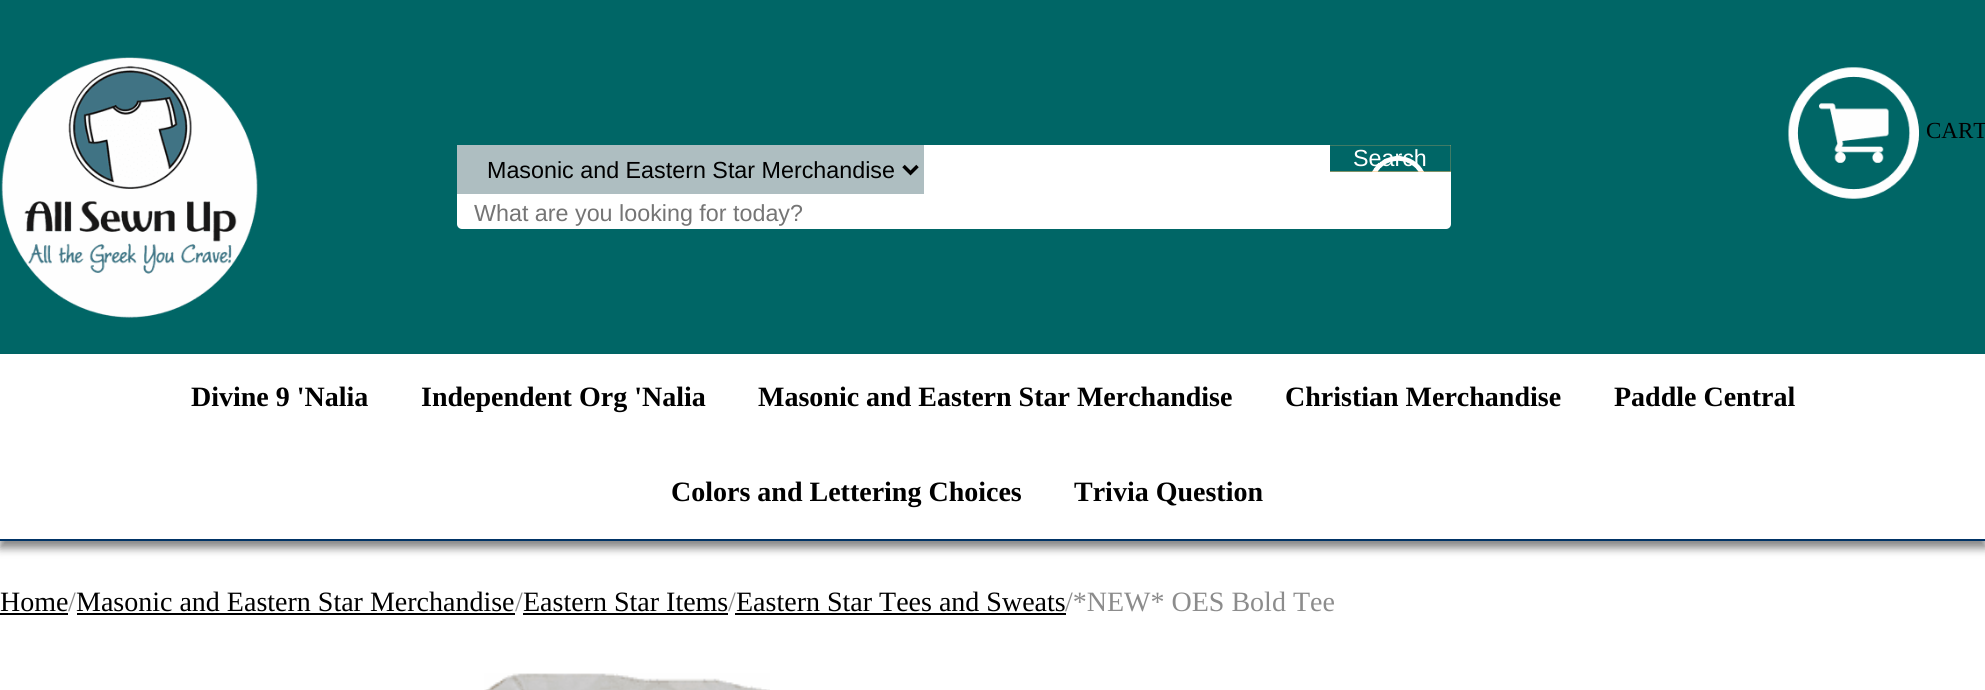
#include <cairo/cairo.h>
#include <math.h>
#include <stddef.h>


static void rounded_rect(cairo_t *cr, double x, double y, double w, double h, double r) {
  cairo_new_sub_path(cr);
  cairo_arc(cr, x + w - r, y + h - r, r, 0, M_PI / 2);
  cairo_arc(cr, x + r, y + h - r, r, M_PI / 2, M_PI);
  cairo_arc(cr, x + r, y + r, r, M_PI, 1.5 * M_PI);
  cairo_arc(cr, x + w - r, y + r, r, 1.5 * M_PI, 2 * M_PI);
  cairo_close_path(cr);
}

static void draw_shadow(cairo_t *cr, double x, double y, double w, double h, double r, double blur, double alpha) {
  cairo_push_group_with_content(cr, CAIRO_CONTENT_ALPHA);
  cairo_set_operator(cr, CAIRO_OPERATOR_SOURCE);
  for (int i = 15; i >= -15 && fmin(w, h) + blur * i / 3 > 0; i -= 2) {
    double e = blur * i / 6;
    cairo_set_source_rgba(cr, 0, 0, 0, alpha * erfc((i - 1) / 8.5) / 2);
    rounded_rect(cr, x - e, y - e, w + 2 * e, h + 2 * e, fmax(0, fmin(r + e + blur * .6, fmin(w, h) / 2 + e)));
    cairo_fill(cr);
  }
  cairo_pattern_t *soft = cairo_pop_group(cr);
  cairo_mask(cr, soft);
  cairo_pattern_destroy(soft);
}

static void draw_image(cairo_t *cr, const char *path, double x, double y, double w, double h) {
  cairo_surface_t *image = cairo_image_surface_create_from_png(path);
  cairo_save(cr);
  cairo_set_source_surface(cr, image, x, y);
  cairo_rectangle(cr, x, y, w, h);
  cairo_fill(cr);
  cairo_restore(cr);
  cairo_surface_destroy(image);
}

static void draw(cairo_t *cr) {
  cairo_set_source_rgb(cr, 1, 1, 1);
  cairo_paint(cr);
  cairo_set_source_rgb(cr, 0, 102 / 255.0, 102 / 255.0);
  cairo_rectangle(cr, 0, 0, 1985, 354);
  cairo_fill(cr);
  draw_image(cr, "images/1.png", 1, 57, 257, 261);
  draw_image(cr, "images/2.png", 1788, 67, 131, 132);
  cairo_set_source_rgb(cr, 1, 1, 1);
  rounded_rect(cr, 457, 145, 994, 84, 5);
  cairo_fill(cr);
  cairo_set_source_rgb(cr, 1, 191 / 255.0, 105 / 255.0);
  cairo_rectangle(cr, 1330, 145, 121, 27);
  cairo_fill(cr);
  draw_image(cr, "images/3.png", 1330, 145, 121, 27);
  cairo_set_source_rgb(cr, 174 / 255.0, 190 / 255.0, 193 / 255.0);
  cairo_rectangle(cr, 457, 145, 467, 49);
  cairo_fill(cr);
  cairo_new_path(cr);
  cairo_move_to(cr, 903.5, 166);
  cairo_line_to(cr, 910.5, 173);
  cairo_line_to(cr, 917.5, 166);
  cairo_set_source_rgb(cr, 0, 0, 0);
  cairo_set_line_width(cr, 3.5);
  cairo_stroke(cr);
  cairo_set_source_rgb(cr, 0, 0, 0);
  draw_shadow(cr, 0, 361, 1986, 187, 0, 4.5, 0.48);
  cairo_set_source_rgb(cr, 1, 1, 1);
  cairo_rectangle(cr, 0, 354, 1985, 185);
  cairo_fill(cr);
  cairo_set_source_rgb(cr, 0, 51 / 255.0, 102 / 255.0);
  cairo_rectangle(cr, 0, 539, 1985, 2);
  cairo_fill(cr);
  cairo_set_source_rgb(cr, 0, 0, 0);
  cairo_rectangle(cr, 0, 613, 68, 2);
  cairo_fill(cr);
  cairo_rectangle(cr, 77, 613, 438, 2);
  cairo_fill(cr);
  cairo_rectangle(cr, 523, 613, 205, 2);
  cairo_fill(cr);
  cairo_rectangle(cr, 735, 613, 331, 2);
  cairo_fill(cr);
  draw_image(cr, "images/4.png", 484, 673, 286, 17);
  cairo_select_font_face(cr, "Liberation Serif", CAIRO_FONT_SLANT_NORMAL, CAIRO_FONT_WEIGHT_NORMAL);
  cairo_set_font_size(cr, 23);
  cairo_move_to(cr, 1926, 138);
  cairo_show_text(cr, "CART");
  cairo_select_font_face(cr, "Liberation Sans", CAIRO_FONT_SLANT_NORMAL, CAIRO_FONT_WEIGHT_NORMAL);
  cairo_set_font_size(cr, 23.3);
  cairo_set_source_rgb(cr, 1, 1, 1);
  cairo_move_to(cr, 1353, 166);
  cairo_show_text(cr, "Search");
  cairo_set_source_rgb(cr, 0, 0, 0);
  cairo_move_to(cr, 487, 178);
  cairo_show_text(cr, "Masonic and Eastern Star Merchandise");
  cairo_set_source_rgb(cr, 117 / 255.0, 117 / 255.0, 117 / 255.0);
  cairo_move_to(cr, 474, 221);
  cairo_show_text(cr, "What are you looking for today?");
  cairo_select_font_face(cr, "Liberation Serif", CAIRO_FONT_SLANT_NORMAL, CAIRO_FONT_WEIGHT_BOLD);
  cairo_set_font_size(cr, 28);
  cairo_set_source_rgb(cr, 0, 0, 0);
  cairo_move_to(cr, 191, 406);
  cairo_show_text(cr, "Divine 9 'Nalia");
  cairo_move_to(cr, 421, 406);
  cairo_show_text(cr, "Independent Org 'Nalia");
  cairo_move_to(cr, 758, 406);
  cairo_show_text(cr, "Masonic and Eastern Star Merchandise");
  cairo_move_to(cr, 1285, 406);
  cairo_show_text(cr, "Christian Merchandise");
  cairo_move_to(cr, 1614, 406);
  cairo_show_text(cr, "Paddle Central");
  cairo_move_to(cr, 671, 501);
  cairo_show_text(cr, "Colors and Lettering Choices");
  cairo_move_to(cr, 1074, 501);
  cairo_show_text(cr, "Trivia Question");
  cairo_select_font_face(cr, "Liberation Serif", CAIRO_FONT_SLANT_NORMAL, CAIRO_FONT_WEIGHT_NORMAL);
  cairo_move_to(cr, 0, 611);
  cairo_show_text(cr, "Home");
  cairo_set_source_rgb(cr, 140 / 255.0, 140 / 255.0, 140 / 255.0);
  cairo_move_to(cr, 68, 611);
  cairo_show_text(cr, "/");
  cairo_set_source_rgb(cr, 0, 0, 0);
  cairo_move_to(cr, 76, 611);
  cairo_show_text(cr, "Masonic and Eastern Star Merchandise");
  cairo_set_source_rgb(cr, 140 / 255.0, 140 / 255.0, 140 / 255.0);
  cairo_move_to(cr, 515, 611);
  cairo_show_text(cr, "/");
  cairo_set_source_rgb(cr, 0, 0, 0);
  cairo_move_to(cr, 523, 611);
  cairo_show_text(cr, "Eastern Star Items");
  cairo_set_source_rgb(cr, 140 / 255.0, 140 / 255.0, 140 / 255.0);
  cairo_move_to(cr, 728, 611);
  cairo_show_text(cr, "/");
  cairo_set_source_rgb(cr, 0, 0, 0);
  cairo_move_to(cr, 736, 611);
  cairo_show_text(cr, "Eastern Star Tees and Sweats");
  cairo_set_source_rgb(cr, 140 / 255.0, 140 / 255.0, 140 / 255.0);
  cairo_move_to(cr, 1065, 611);
  cairo_show_text(cr, "/*NEW* OES Bold Tee");
}

int main(void) {
  cairo_surface_t *surface = cairo_image_surface_create(CAIRO_FORMAT_RGB24, 1985, 690);
  cairo_t *cr = cairo_create(surface);
  cairo_font_options_t *options = cairo_font_options_create();
  cairo_font_options_set_hint_metrics(options, CAIRO_HINT_METRICS_OFF);
  cairo_font_options_set_hint_style(options, CAIRO_HINT_STYLE_NONE);
  cairo_set_font_options(cr, options);
  cairo_set_miter_limit(cr, 4);
  draw(cr);
  cairo_surface_write_to_png(surface, "out.png");
  cairo_font_options_destroy(options);
  cairo_destroy(cr);
  cairo_surface_destroy(surface);
  return 0;
}
